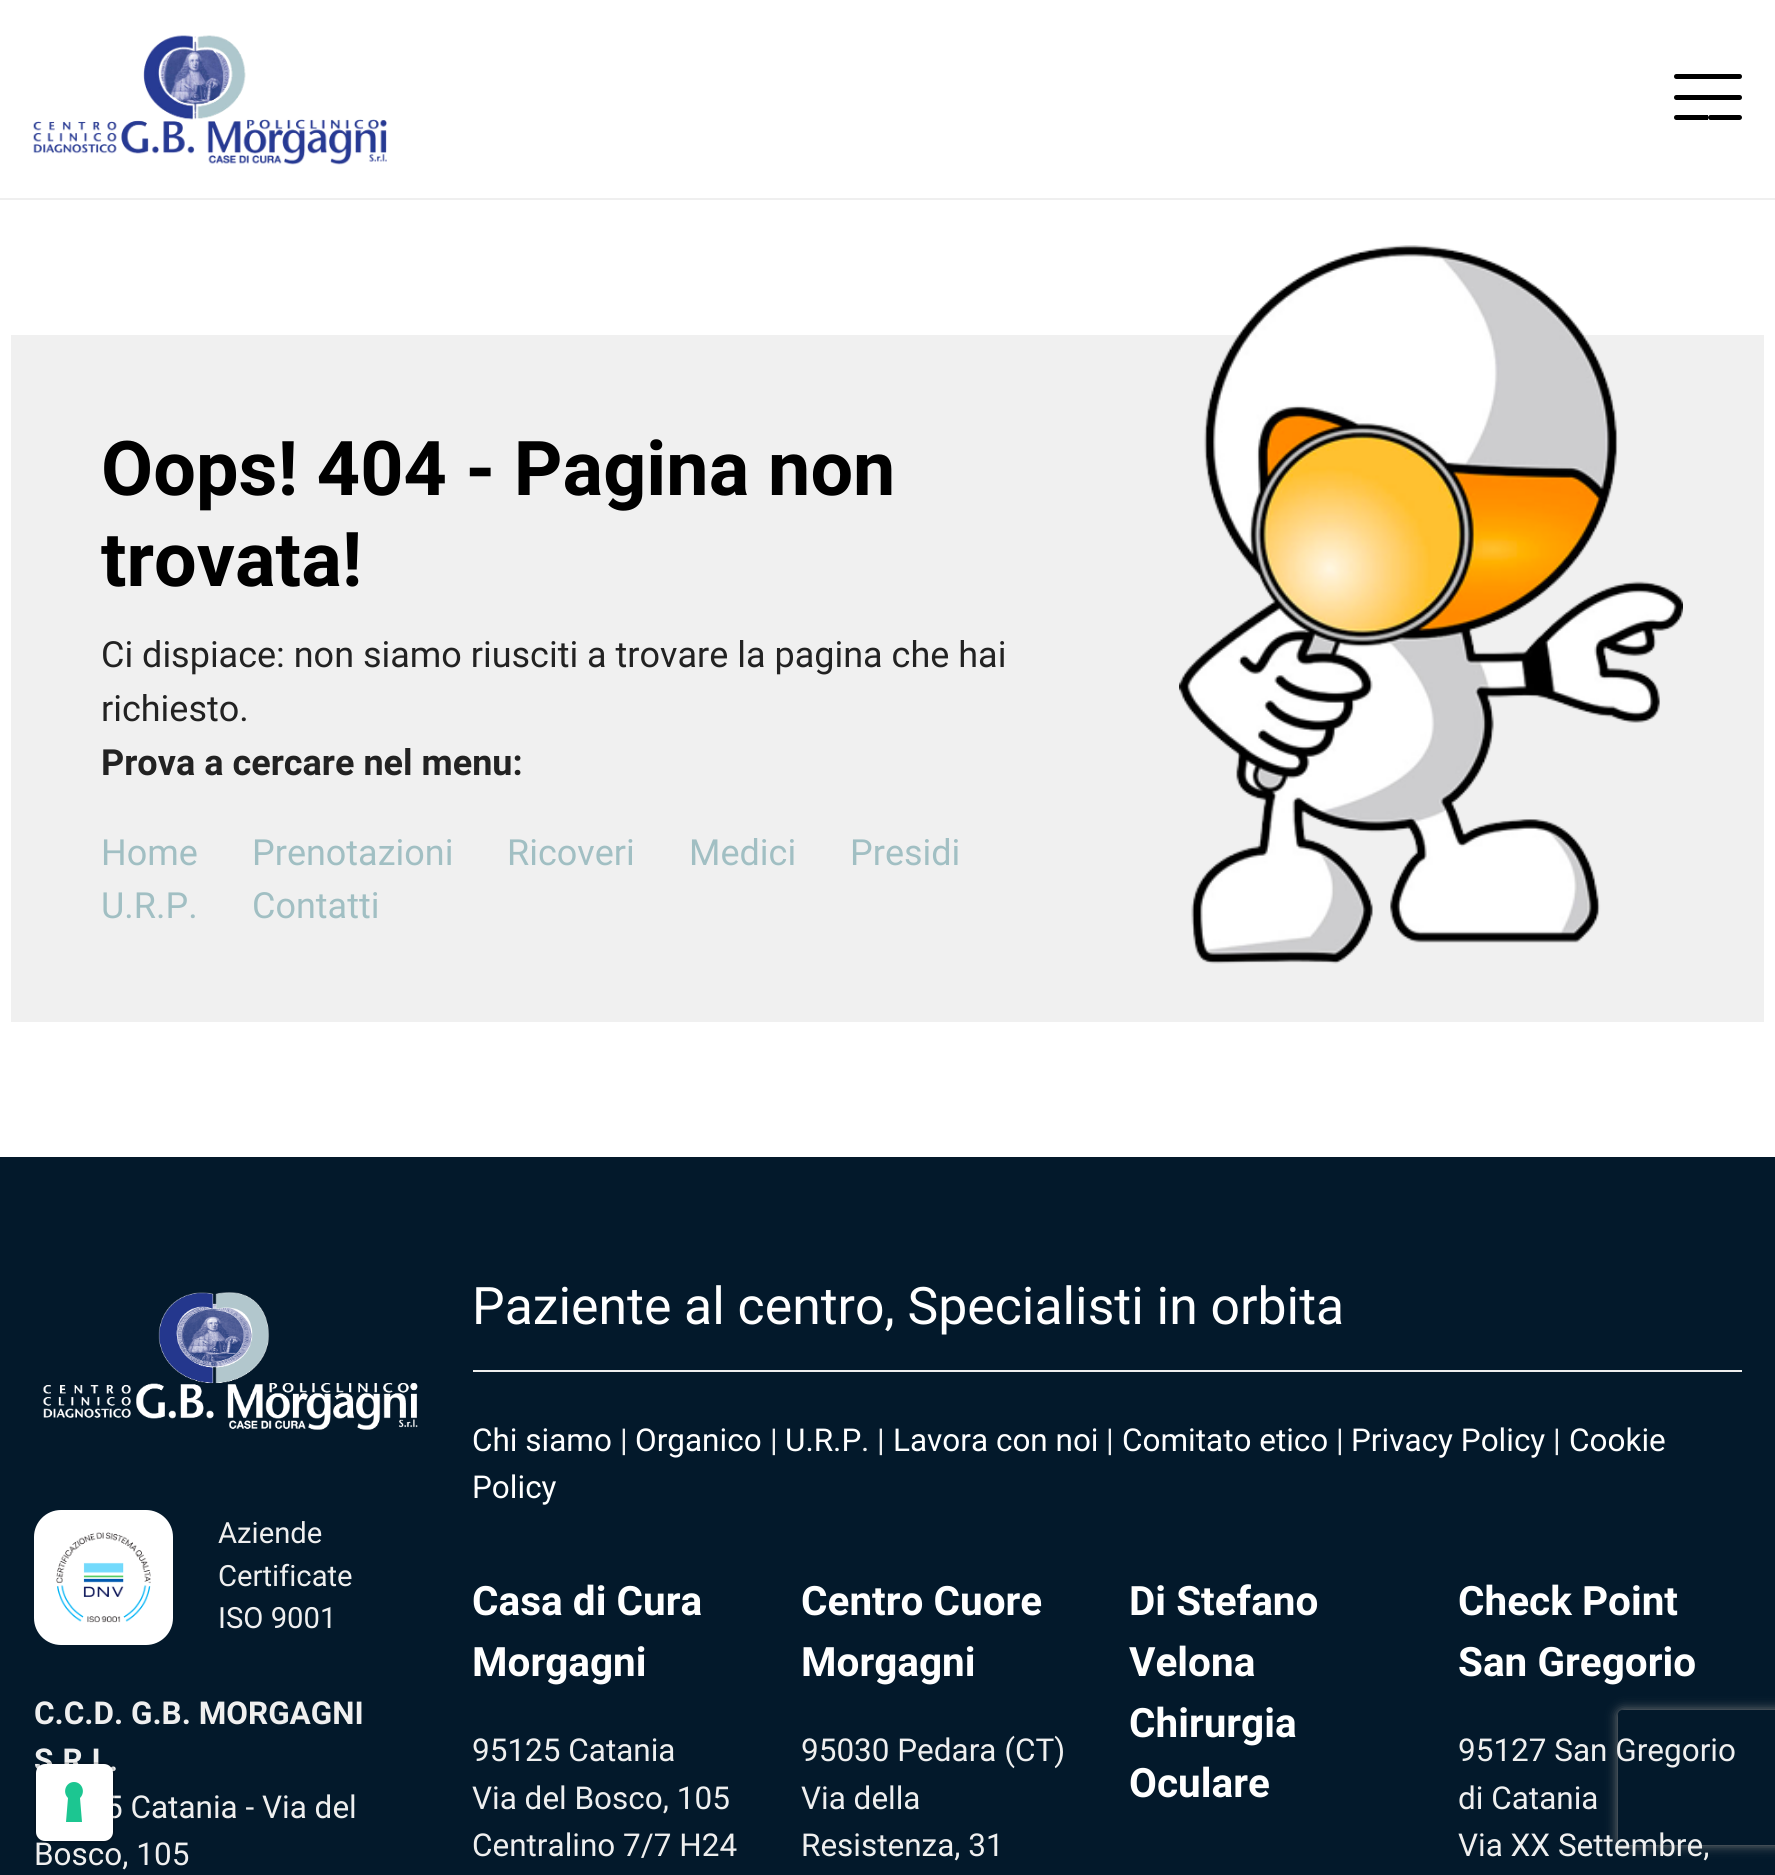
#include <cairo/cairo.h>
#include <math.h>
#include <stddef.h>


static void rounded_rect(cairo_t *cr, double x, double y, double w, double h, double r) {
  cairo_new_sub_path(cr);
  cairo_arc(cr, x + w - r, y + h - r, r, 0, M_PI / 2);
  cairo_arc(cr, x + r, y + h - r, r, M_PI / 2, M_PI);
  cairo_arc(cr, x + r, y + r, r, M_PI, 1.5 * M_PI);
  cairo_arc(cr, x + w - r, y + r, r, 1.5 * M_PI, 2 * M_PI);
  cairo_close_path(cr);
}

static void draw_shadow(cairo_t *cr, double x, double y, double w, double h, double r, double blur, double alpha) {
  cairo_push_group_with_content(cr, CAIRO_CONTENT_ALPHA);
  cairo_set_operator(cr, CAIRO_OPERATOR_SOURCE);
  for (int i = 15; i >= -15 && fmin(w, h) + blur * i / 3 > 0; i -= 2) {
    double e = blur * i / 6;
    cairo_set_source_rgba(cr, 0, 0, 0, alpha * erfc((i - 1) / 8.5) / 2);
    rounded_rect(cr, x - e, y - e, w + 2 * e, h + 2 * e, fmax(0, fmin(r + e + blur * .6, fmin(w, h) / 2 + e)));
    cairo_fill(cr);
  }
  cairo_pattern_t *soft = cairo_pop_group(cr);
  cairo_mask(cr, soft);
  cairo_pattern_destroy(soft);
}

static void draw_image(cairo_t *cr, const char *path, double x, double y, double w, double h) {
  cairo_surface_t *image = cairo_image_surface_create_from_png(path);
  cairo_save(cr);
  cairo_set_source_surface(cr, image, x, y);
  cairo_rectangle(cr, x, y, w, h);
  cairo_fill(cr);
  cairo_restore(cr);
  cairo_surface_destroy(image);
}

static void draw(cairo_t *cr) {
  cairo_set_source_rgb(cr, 1, 1, 1);
  cairo_paint(cr);
  cairo_set_source_rgb(cr, 239 / 255.0, 239 / 255.0, 239 / 255.0);
  cairo_rectangle(cr, 0, 198, 1775, 2);
  cairo_fill(cr);
  draw_image(cr, "images/1.png", 33, 35, 354, 130);
  cairo_set_source_rgb(cr, 0, 0, 0);
  cairo_new_path(cr);
  cairo_move_to(cr, 1676.5, 74);
  cairo_line_to(cr, 1708, 74);
  cairo_line_to(cr, 1708, 79);
  cairo_line_to(cr, 1676.5, 79);
  cairo_curve_to(cr, 1675, 79, 1674, 78, 1674, 76.5);
  cairo_curve_to(cr, 1674, 75, 1675, 74, 1676.5, 74);
  cairo_close_path(cr);
  cairo_fill(cr);
  cairo_new_path(cr);
  cairo_move_to(cr, 1708, 74);
  cairo_line_to(cr, 1739.5, 74);
  cairo_curve_to(cr, 1741, 74, 1742, 75, 1742, 76.5);
  cairo_curve_to(cr, 1742, 78, 1741, 79, 1739.5, 79);
  cairo_line_to(cr, 1708, 79);
  cairo_close_path(cr);
  cairo_fill(cr);
  cairo_new_path(cr);
  cairo_move_to(cr, 1676.5, 95);
  cairo_line_to(cr, 1708, 95);
  cairo_line_to(cr, 1708, 100);
  cairo_line_to(cr, 1676.5, 100);
  cairo_curve_to(cr, 1675, 100, 1674, 99, 1674, 97.5);
  cairo_curve_to(cr, 1674, 96, 1675, 95, 1676.5, 95);
  cairo_close_path(cr);
  cairo_fill(cr);
  cairo_new_path(cr);
  cairo_move_to(cr, 1708, 95);
  cairo_line_to(cr, 1739.5, 95);
  cairo_curve_to(cr, 1741, 95, 1742, 96, 1742, 97.5);
  cairo_curve_to(cr, 1742, 99, 1741, 100, 1739.5, 100);
  cairo_line_to(cr, 1708, 100);
  cairo_close_path(cr);
  cairo_fill(cr);
  cairo_new_path(cr);
  cairo_move_to(cr, 1676.5, 115);
  cairo_line_to(cr, 1708, 115);
  cairo_line_to(cr, 1708, 120);
  cairo_line_to(cr, 1676.5, 120);
  cairo_curve_to(cr, 1675, 120, 1674, 119, 1674, 117.5);
  cairo_curve_to(cr, 1674, 116, 1675, 115, 1676.5, 115);
  cairo_close_path(cr);
  cairo_fill(cr);
  rounded_rect(cr, 1708, 115, 34, 5, 2.5);
  cairo_fill(cr);
  cairo_set_source_rgb(cr, 240 / 255.0, 240 / 255.0, 240 / 255.0);
  cairo_rectangle(cr, 11, 335, 1753, 687);
  cairo_fill(cr);
  draw_image(cr, "images/2.png", 1179, 245, 504, 719);
  cairo_set_source_rgb(cr, 3 / 255.0, 25 / 255.0, 43 / 255.0);
  cairo_rectangle(cr, 0, 1157, 1775, 718);
  cairo_fill(cr);
  draw_image(cr, "images/3.png", 43, 1292, 375, 138);
  cairo_set_source_rgb(cr, 1, 1, 1);
  rounded_rect(cr, 34, 1510, 139, 135, 27);
  cairo_fill(cr);
  draw_image(cr, "images/4.png", 56, 1532, 95, 91);
  cairo_set_source_rgb(cr, 238 / 255.0, 238 / 255.0, 238 / 255.0);
  cairo_rectangle(cr, 473, 1370, 1269, 2);
  cairo_fill(cr);
  cairo_save(cr);
  cairo_set_fill_rule(cr, CAIRO_FILL_RULE_EVEN_ODD);
  cairo_new_path(cr);
  cairo_move_to(cr, 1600, 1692);
  cairo_line_to(cr, 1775, 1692);
  cairo_line_to(cr, 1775, 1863);
  cairo_line_to(cr, 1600, 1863);
  cairo_close_path(cr);
  cairo_move_to(cr, 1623, 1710);
  cairo_line_to(cr, 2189, 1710);
  cairo_curve_to(cr, 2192, 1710, 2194, 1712, 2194, 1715);
  cairo_line_to(cr, 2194, 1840);
  cairo_curve_to(cr, 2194, 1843, 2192, 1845, 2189, 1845);
  cairo_line_to(cr, 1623, 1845);
  cairo_curve_to(cr, 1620, 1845, 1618, 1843, 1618, 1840);
  cairo_line_to(cr, 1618, 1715);
  cairo_curve_to(cr, 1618, 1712, 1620, 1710, 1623, 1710);
  cairo_close_path(cr);
  cairo_clip(cr);
  cairo_set_source_rgb(cr, 128 / 255.0, 128 / 255.0, 128 / 255.0);
  draw_shadow(cr, 1618, 1710, 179, 135, 5, 5.5, 1);
  cairo_restore(cr);
  cairo_select_font_face(cr, "Roboto", CAIRO_FONT_SLANT_NORMAL, CAIRO_FONT_WEIGHT_BOLD);
  cairo_set_font_size(cr, 75.6);
  cairo_set_source_rgb(cr, 0, 0, 0);
  cairo_move_to(cr, 101, 495);
  cairo_show_text(cr, "Oops! 404 - Pagina non");
  cairo_move_to(cr, 101, 586);
  cairo_show_text(cr, "trovata!");
  cairo_select_font_face(cr, "Roboto", CAIRO_FONT_SLANT_NORMAL, CAIRO_FONT_WEIGHT_NORMAL);
  cairo_set_font_size(cr, 36);
  cairo_set_source_rgb(cr, 34 / 255.0, 34 / 255.0, 34 / 255.0);
  cairo_move_to(cr, 101, 667);
  cairo_show_text(cr, "Ci dispiace: non siamo riusciti a trovare la pagina che hai");
  cairo_move_to(cr, 101, 721);
  cairo_show_text(cr, "richiesto.");
  cairo_select_font_face(cr, "Roboto", CAIRO_FONT_SLANT_NORMAL, CAIRO_FONT_WEIGHT_BOLD);
  cairo_move_to(cr, 101, 775);
  cairo_show_text(cr, "Prova a cercare nel menu:");
  cairo_select_font_face(cr, "Roboto", CAIRO_FONT_SLANT_NORMAL, CAIRO_FONT_WEIGHT_NORMAL);
  cairo_set_source_rgb(cr, 161 / 255.0, 191 / 255.0, 195 / 255.0);
  cairo_move_to(cr, 101, 865);
  cairo_show_text(cr, "Home");
  cairo_move_to(cr, 252, 865);
  cairo_show_text(cr, "Prenotazioni");
  cairo_move_to(cr, 507, 865);
  cairo_show_text(cr, "Ricoveri");
  cairo_move_to(cr, 689, 865);
  cairo_show_text(cr, "Medici");
  cairo_move_to(cr, 850, 865);
  cairo_show_text(cr, "Presidi");
  cairo_move_to(cr, 101, 918);
  cairo_show_text(cr, "U.R.P.");
  cairo_move_to(cr, 252, 918);
  cairo_show_text(cr, "Contatti");
  cairo_set_font_size(cr, 29.25);
  cairo_set_source_rgb(cr, 239 / 255.0, 239 / 255.0, 239 / 255.0);
  cairo_move_to(cr, 218, 1543);
  cairo_show_text(cr, "Aziende");
  cairo_move_to(cr, 218, 1586);
  cairo_show_text(cr, "Certificate");
  cairo_move_to(cr, 218, 1628);
  cairo_show_text(cr, "ISO 9001");
  cairo_select_font_face(cr, "Roboto", CAIRO_FONT_SLANT_NORMAL, CAIRO_FONT_WEIGHT_BOLD);
  cairo_set_font_size(cr, 31.5);
  cairo_move_to(cr, 34, 1724);
  cairo_show_text(cr, "C.C.D. G.B. MORGAGNI");
  cairo_move_to(cr, 34, 1771);
  cairo_show_text(cr, "S.R.L.");
  cairo_select_font_face(cr, "Roboto", CAIRO_FONT_SLANT_NORMAL, CAIRO_FONT_WEIGHT_NORMAL);
  cairo_move_to(cr, 105, 1818);
  cairo_show_text(cr, "5 Catania - Via del");
  cairo_move_to(cr, 34, 1865);
  cairo_show_text(cr, "Bosco, 105");
  cairo_set_font_size(cr, 51.75);
  cairo_set_source_rgb(cr, 1, 1, 1);
  cairo_move_to(cr, 472, 1324);
  cairo_show_text(cr, "Paziente al centro, Specialisti in orbita");
  cairo_set_font_size(cr, 31.5);
  cairo_move_to(cr, 472, 1451);
  cairo_show_text(cr, "Chi siamo");
  cairo_set_source_rgb(cr, 239 / 255.0, 239 / 255.0, 239 / 255.0);
  cairo_move_to(cr, 620, 1451);
  cairo_show_text(cr, "|");
  cairo_set_source_rgb(cr, 1, 1, 1);
  cairo_move_to(cr, 635, 1451);
  cairo_show_text(cr, "Organico");
  cairo_set_source_rgb(cr, 239 / 255.0, 239 / 255.0, 239 / 255.0);
  cairo_move_to(cr, 770, 1451);
  cairo_show_text(cr, "|");
  cairo_set_source_rgb(cr, 1, 1, 1);
  cairo_move_to(cr, 785, 1451);
  cairo_show_text(cr, "U.R.P");
  cairo_set_source_rgb(cr, 239 / 255.0, 239 / 255.0, 239 / 255.0);
  cairo_move_to(cr, 861, 1451);
  cairo_show_text(cr, ". |");
  cairo_set_source_rgb(cr, 1, 1, 1);
  cairo_move_to(cr, 893, 1451);
  cairo_show_text(cr, "Lavora con noi");
  cairo_set_source_rgb(cr, 239 / 255.0, 239 / 255.0, 239 / 255.0);
  cairo_move_to(cr, 1106, 1451);
  cairo_show_text(cr, "|");
  cairo_set_source_rgb(cr, 1, 1, 1);
  cairo_move_to(cr, 1122, 1451);
  cairo_show_text(cr, "Comitato etico");
  cairo_set_source_rgb(cr, 239 / 255.0, 239 / 255.0, 239 / 255.0);
  cairo_move_to(cr, 1336, 1451);
  cairo_show_text(cr, "|");
  cairo_set_source_rgb(cr, 1, 1, 1);
  cairo_move_to(cr, 1351, 1451);
  cairo_show_text(cr, "Privacy Policy");
  cairo_set_source_rgb(cr, 239 / 255.0, 239 / 255.0, 239 / 255.0);
  cairo_move_to(cr, 1553, 1451);
  cairo_show_text(cr, "|");
  cairo_set_source_rgb(cr, 1, 1, 1);
  cairo_move_to(cr, 1569, 1451);
  cairo_show_text(cr, "Cookie");
  cairo_move_to(cr, 472, 1498);
  cairo_show_text(cr, "Policy");
  cairo_select_font_face(cr, "Roboto", CAIRO_FONT_SLANT_NORMAL, CAIRO_FONT_WEIGHT_BOLD);
  cairo_set_font_size(cr, 40.5);
  cairo_move_to(cr, 472, 1615);
  cairo_show_text(cr, "Casa di Cura");
  cairo_move_to(cr, 472, 1676);
  cairo_show_text(cr, "Morgagni");
  cairo_select_font_face(cr, "Roboto", CAIRO_FONT_SLANT_NORMAL, CAIRO_FONT_WEIGHT_NORMAL);
  cairo_set_font_size(cr, 31.5);
  cairo_set_source_rgb(cr, 239 / 255.0, 239 / 255.0, 239 / 255.0);
  cairo_move_to(cr, 472, 1761);
  cairo_show_text(cr, "95125 Catania");
  cairo_move_to(cr, 472, 1809);
  cairo_show_text(cr, "Via del Bosco, 105");
  cairo_move_to(cr, 472, 1856);
  cairo_show_text(cr, "Centralino 7/7 H24");
  cairo_select_font_face(cr, "Roboto", CAIRO_FONT_SLANT_NORMAL, CAIRO_FONT_WEIGHT_BOLD);
  cairo_set_font_size(cr, 40.5);
  cairo_set_source_rgb(cr, 1, 1, 1);
  cairo_move_to(cr, 801, 1615);
  cairo_show_text(cr, "Centro Cuore");
  cairo_move_to(cr, 801, 1676);
  cairo_show_text(cr, "Morgagni");
  cairo_select_font_face(cr, "Roboto", CAIRO_FONT_SLANT_NORMAL, CAIRO_FONT_WEIGHT_NORMAL);
  cairo_set_font_size(cr, 31.5);
  cairo_set_source_rgb(cr, 239 / 255.0, 239 / 255.0, 239 / 255.0);
  cairo_move_to(cr, 801, 1761);
  cairo_show_text(cr, "95030 Pedara (CT)");
  cairo_move_to(cr, 801, 1809);
  cairo_show_text(cr, "Via della");
  cairo_move_to(cr, 801, 1856);
  cairo_show_text(cr, "Resistenza, 31");
  cairo_select_font_face(cr, "Roboto", CAIRO_FONT_SLANT_NORMAL, CAIRO_FONT_WEIGHT_BOLD);
  cairo_set_font_size(cr, 40.5);
  cairo_set_source_rgb(cr, 1, 1, 1);
  cairo_move_to(cr, 1129, 1615);
  cairo_show_text(cr, "Di Stefano");
  cairo_move_to(cr, 1129, 1676);
  cairo_show_text(cr, "Velona");
  cairo_move_to(cr, 1129, 1737);
  cairo_show_text(cr, "Chirurgia");
  cairo_move_to(cr, 1129, 1797);
  cairo_show_text(cr, "Oculare");
  cairo_move_to(cr, 1458, 1615);
  cairo_show_text(cr, "Check Point");
  cairo_move_to(cr, 1458, 1676);
  cairo_show_text(cr, "San Gregorio");
  cairo_select_font_face(cr, "Roboto", CAIRO_FONT_SLANT_NORMAL, CAIRO_FONT_WEIGHT_NORMAL);
  cairo_set_font_size(cr, 31.5);
  cairo_set_source_rgb(cr, 239 / 255.0, 239 / 255.0, 239 / 255.0);
  cairo_move_to(cr, 1458, 1761);
  cairo_show_text(cr, "95127 San Gregorio");
  cairo_move_to(cr, 1458, 1809);
  cairo_show_text(cr, "di Catania");
  cairo_move_to(cr, 1458, 1856);
  cairo_show_text(cr, "Via XX Settembre,");
  rounded_rect(cr, 35, 1763, 79, 79, 10);
  cairo_set_source_rgba(cr, 0, 0, 0, 0.15);
  cairo_stroke(cr);
  cairo_set_source_rgb(cr, 1, 1, 1);
  rounded_rect(cr, 36, 1764, 77, 77, 9);
  cairo_fill(cr);
  cairo_set_source_rgb(cr, 28 / 255.0, 198 / 255.0, 145 / 255.0);
  cairo_set_fill_rule(cr, CAIRO_FILL_RULE_EVEN_ODD);
  cairo_new_path(cr);
  cairo_move_to(cr, 74, 1782);
  cairo_curve_to(cr, 82, 1782, 86, 1792, 80, 1798);
  cairo_line_to(cr, 82, 1822);
  cairo_line_to(cr, 66, 1822);
  cairo_line_to(cr, 68, 1798);
  cairo_curve_to(cr, 62, 1792, 66, 1782, 74, 1782);
  cairo_close_path(cr);
  cairo_fill(cr);
}

int main(void) {
  cairo_surface_t *surface = cairo_image_surface_create(CAIRO_FORMAT_RGB24, 1775, 1875);
  cairo_t *cr = cairo_create(surface);
  cairo_font_options_t *options = cairo_font_options_create();
  cairo_font_options_set_hint_metrics(options, CAIRO_HINT_METRICS_OFF);
  cairo_font_options_set_hint_style(options, CAIRO_HINT_STYLE_NONE);
  cairo_set_font_options(cr, options);
  cairo_set_miter_limit(cr, 4);
  draw(cr);
  cairo_surface_write_to_png(surface, "out.png");
  cairo_font_options_destroy(options);
  cairo_destroy(cr);
  cairo_surface_destroy(surface);
  return 0;
}
